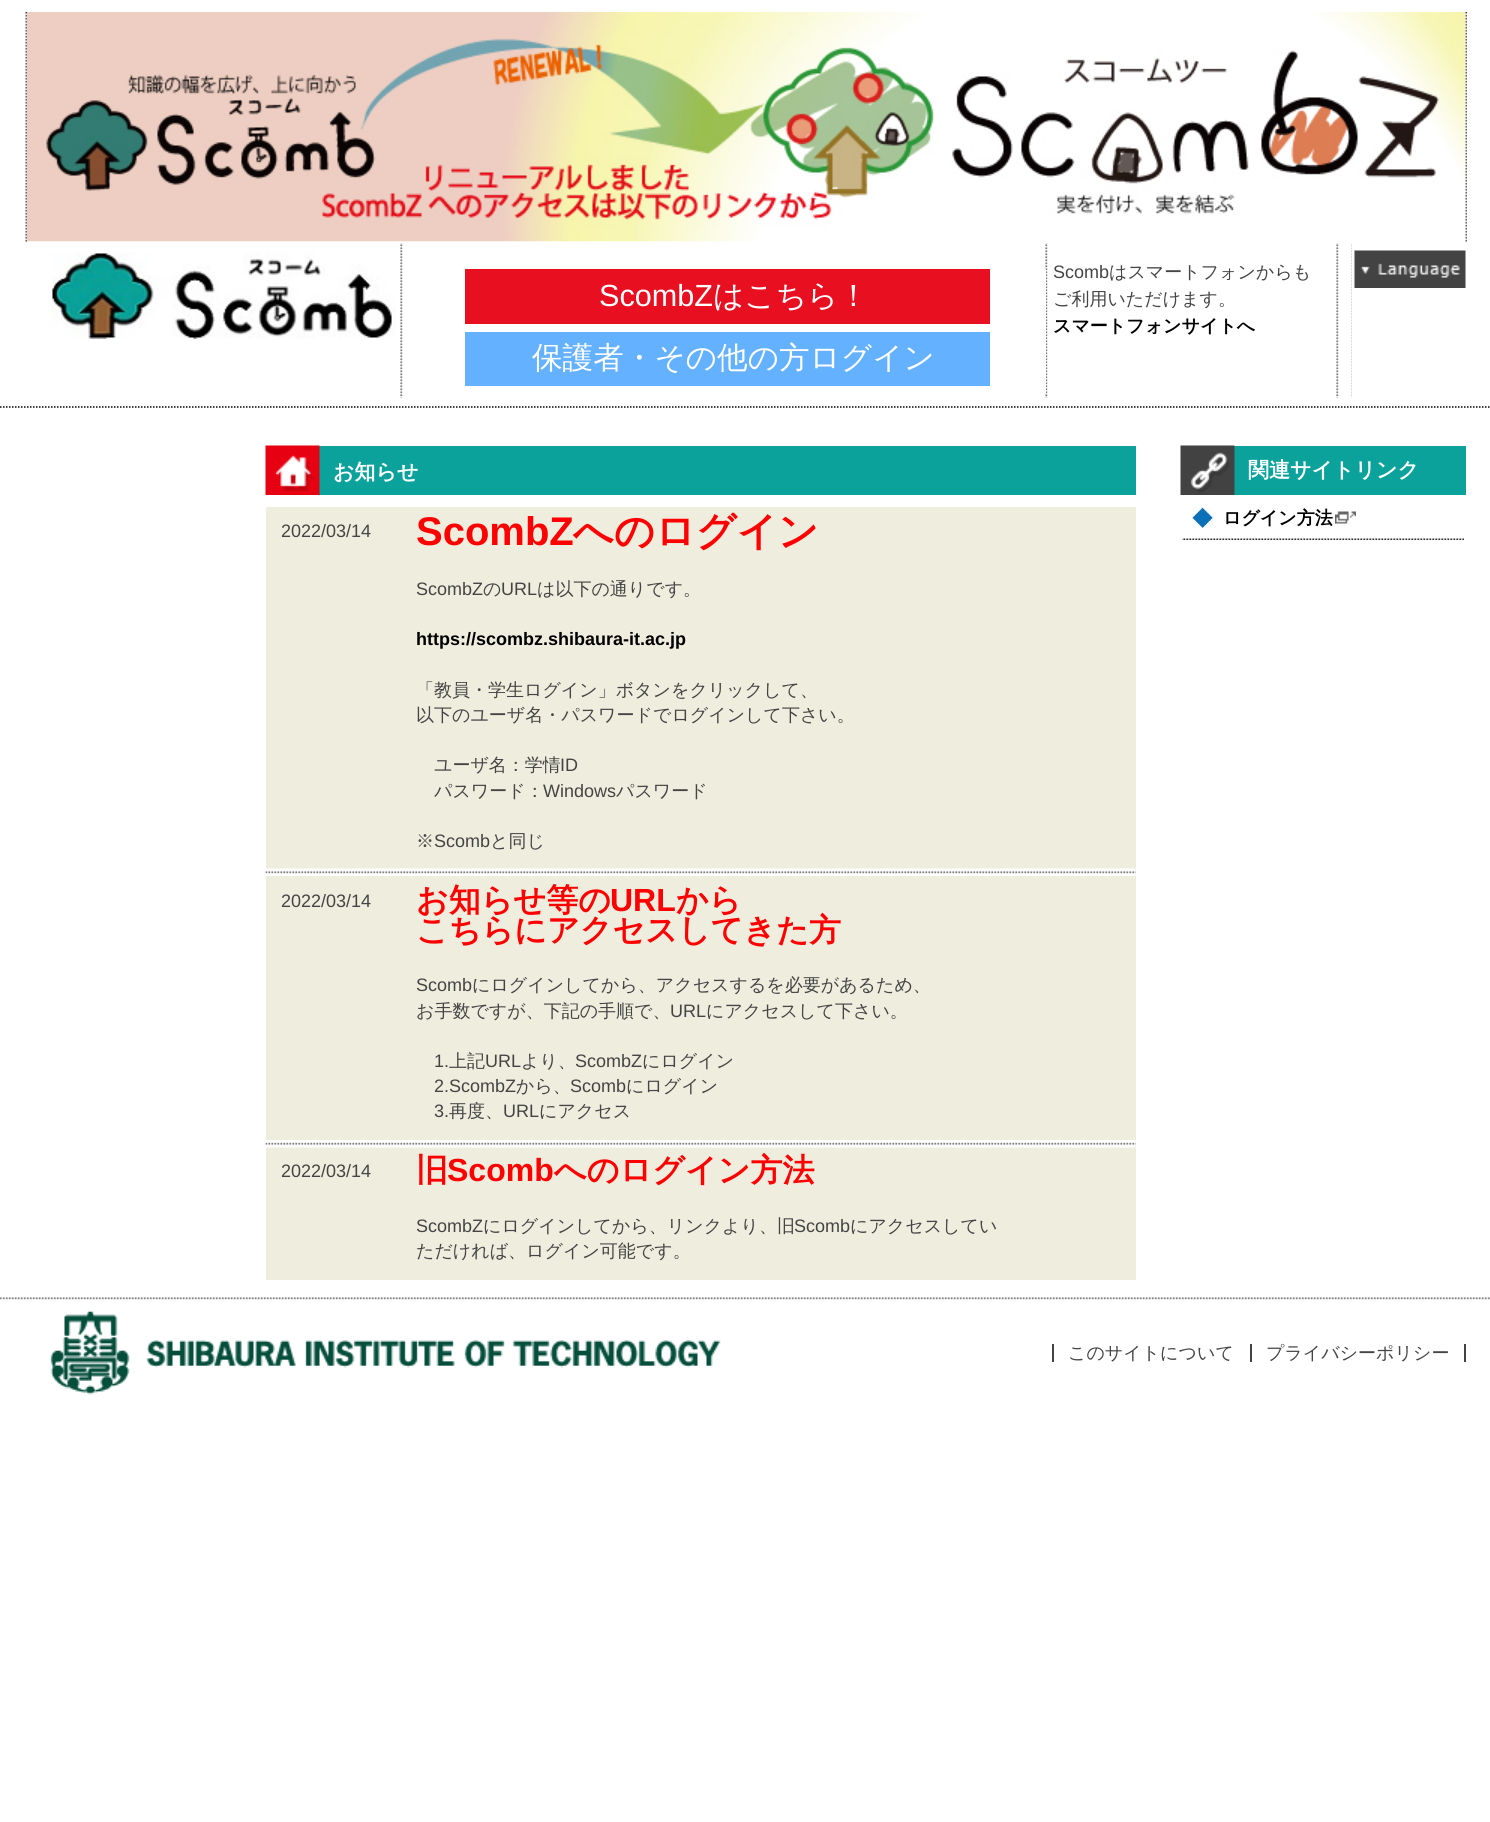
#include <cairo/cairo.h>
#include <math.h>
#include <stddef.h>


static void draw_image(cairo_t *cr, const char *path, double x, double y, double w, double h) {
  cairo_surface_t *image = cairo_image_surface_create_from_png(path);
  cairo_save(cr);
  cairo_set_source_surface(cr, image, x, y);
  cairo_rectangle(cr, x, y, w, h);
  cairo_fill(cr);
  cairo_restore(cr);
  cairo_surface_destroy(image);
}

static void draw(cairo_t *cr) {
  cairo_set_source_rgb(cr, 1, 1, 1);
  cairo_paint(cr);
  cairo_new_path(cr);
  cairo_move_to(cr, 0, 407);
  cairo_line_to(cr, 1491, 407);
  cairo_set_source_rgb(cr, 0, 0, 0);
  cairo_set_line_width(cr, 1.5);
  cairo_set_dash(cr, (double[]){1.5, 1.5}, 2, 0);
  cairo_stroke(cr);
  draw_image(cr, "images/1.png", 25, 12, 1441, 230);
  draw_image(cr, "images/2.png", 25, 12, 2, 230);
  draw_image(cr, "images/3.png", 1465, 12, 2, 230);
  draw_image(cr, "images/4.png", 51, 252, 345, 87);
  draw_image(cr, "images/5.png", 400, 243, 952, 155);
  cairo_set_source_rgb(cr, 1, 1, 1);
  cairo_rectangle(cr, 1045, 269, 1, 124);
  cairo_fill(cr);
  cairo_set_source_rgb(cr, 231 / 255.0, 15 / 255.0, 32 / 255.0);
  cairo_rectangle(cr, 465, 269, 525, 55);
  cairo_fill(cr);
  cairo_set_source_rgb(cr, 100 / 255.0, 177 / 255.0, 1);
  cairo_rectangle(cr, 465, 332, 525, 54);
  cairo_fill(cr);
  draw_image(cr, "images/6.png", 1354, 250, 112, 38);
  cairo_set_source_rgb(cr, 11 / 255.0, 162 / 255.0, 155 / 255.0);
  cairo_rectangle(cr, 319, 446, 817, 49);
  cairo_fill(cr);
  draw_image(cr, "images/7.png", 265, 445, 55, 50);
  cairo_set_source_rgb(cr, 239 / 255.0, 237 / 255.0, 222 / 255.0);
  cairo_rectangle(cr, 266, 507, 870, 773);
  cairo_fill(cr);
  draw_image(cr, "images/8.png", 265, 868, 871, 8);
  draw_image(cr, "images/9.png", 265, 1140, 871, 8);
  cairo_set_source_rgb(cr, 11 / 255.0, 162 / 255.0, 155 / 255.0);
  cairo_rectangle(cr, 1234, 446, 232, 49);
  cairo_fill(cr);
  draw_image(cr, "images/10.png", 1180, 445, 55, 50);
  draw_image(cr, "images/11.png", 1182, 538, 282, 2);
  draw_image(cr, "images/12.png", 1192, 507, 22, 21);
  draw_image(cr, "images/13.png", 1335, 511, 21, 13);
  draw_image(cr, "images/14.png", 0, 1297, 1490, 3);
  draw_image(cr, "images/15.png", 50, 1311, 671, 84);
  cairo_set_source_rgb(cr, 67 / 255.0, 67 / 255.0, 67 / 255.0);
  cairo_rectangle(cr, 1052, 1344, 2, 18);
  cairo_fill(cr);
  cairo_rectangle(cr, 1250, 1344, 2, 18);
  cairo_fill(cr);
  cairo_rectangle(cr, 1464, 1344, 2, 18);
  cairo_fill(cr);
  cairo_select_font_face(cr, "Liberation Sans", CAIRO_FONT_SLANT_NORMAL, CAIRO_FONT_WEIGHT_NORMAL);
  cairo_set_font_size(cr, 30.6);
  cairo_set_source_rgb(cr, 1, 1, 1);
  cairo_move_to(cr, 599, 306);
  cairo_show_text(cr, "ScombZ");
  cairo_select_font_face(cr, "WenQuanYi Zen Hei Medium", CAIRO_FONT_SLANT_NORMAL, CAIRO_FONT_WEIGHT_NORMAL);
  cairo_move_to(cr, 713, 306);
  cairo_show_text(cr, "はこちら！");
  cairo_move_to(cr, 532, 368);
  cairo_show_text(cr, "保護者・その他の方ログイン");
  cairo_select_font_face(cr, "Liberation Sans", CAIRO_FONT_SLANT_NORMAL, CAIRO_FONT_WEIGHT_NORMAL);
  cairo_set_font_size(cr, 18);
  cairo_set_source_rgb(cr, 68 / 255.0, 68 / 255.0, 68 / 255.0);
  cairo_move_to(cr, 1053, 278);
  cairo_show_text(cr, "Scomb");
  cairo_select_font_face(cr, "WenQuanYi Zen Hei Medium", CAIRO_FONT_SLANT_NORMAL, CAIRO_FONT_WEIGHT_NORMAL);
  cairo_move_to(cr, 1109, 278);
  cairo_show_text(cr, "はスマートフォンからも");
  cairo_move_to(cr, 1053, 305);
  cairo_show_text(cr, "ご利用いただけます。");
  cairo_select_font_face(cr, "WenQuanYi Zen Hei", CAIRO_FONT_SLANT_NORMAL, CAIRO_FONT_WEIGHT_BOLD);
  cairo_set_source_rgb(cr, 0, 0, 0);
  cairo_move_to(cr, 1053, 332);
  cairo_show_text(cr, "スマートフォンサイトへ");
  cairo_set_font_size(cr, 21);
  cairo_set_source_rgb(cr, 1, 1, 1);
  cairo_move_to(cr, 333, 479);
  cairo_show_text(cr, "お知らせ");
  cairo_select_font_face(cr, "Liberation Sans", CAIRO_FONT_SLANT_NORMAL, CAIRO_FONT_WEIGHT_NORMAL);
  cairo_set_font_size(cr, 18);
  cairo_set_source_rgb(cr, 68 / 255.0, 68 / 255.0, 68 / 255.0);
  cairo_move_to(cr, 281, 537);
  cairo_show_text(cr, "2022/03/14");
  cairo_select_font_face(cr, "Liberation Sans", CAIRO_FONT_SLANT_NORMAL, CAIRO_FONT_WEIGHT_BOLD);
  cairo_set_font_size(cr, 40);
  cairo_set_source_rgb(cr, 1, 0, 0);
  cairo_move_to(cr, 416, 545);
  cairo_show_text(cr, "ScombZ");
  cairo_select_font_face(cr, "WenQuanYi Zen Hei", CAIRO_FONT_SLANT_NORMAL, CAIRO_FONT_WEIGHT_BOLD);
  cairo_move_to(cr, 573, 545);
  cairo_show_text(cr, "へのログイン");
  cairo_select_font_face(cr, "Liberation Sans", CAIRO_FONT_SLANT_NORMAL, CAIRO_FONT_WEIGHT_NORMAL);
  cairo_set_font_size(cr, 18);
  cairo_set_source_rgb(cr, 68 / 255.0, 68 / 255.0, 68 / 255.0);
  cairo_move_to(cr, 416, 595);
  cairo_show_text(cr, "ScombZ");
  cairo_select_font_face(cr, "WenQuanYi Zen Hei Medium", CAIRO_FONT_SLANT_NORMAL, CAIRO_FONT_WEIGHT_NORMAL);
  cairo_move_to(cr, 483, 595);
  cairo_show_text(cr, "の");
  cairo_select_font_face(cr, "Liberation Sans", CAIRO_FONT_SLANT_NORMAL, CAIRO_FONT_WEIGHT_NORMAL);
  cairo_move_to(cr, 501, 595);
  cairo_show_text(cr, "URL");
  cairo_select_font_face(cr, "WenQuanYi Zen Hei Medium", CAIRO_FONT_SLANT_NORMAL, CAIRO_FONT_WEIGHT_NORMAL);
  cairo_move_to(cr, 537, 595);
  cairo_show_text(cr, "は以下の通りです。");
  cairo_select_font_face(cr, "Liberation Sans", CAIRO_FONT_SLANT_NORMAL, CAIRO_FONT_WEIGHT_BOLD);
  cairo_set_source_rgb(cr, 0, 0, 0);
  cairo_move_to(cr, 416, 645);
  cairo_show_text(cr, "https://scombz.shibaura-it.ac.jp");
  cairo_select_font_face(cr, "WenQuanYi Zen Hei Medium", CAIRO_FONT_SLANT_NORMAL, CAIRO_FONT_WEIGHT_NORMAL);
  cairo_set_source_rgb(cr, 68 / 255.0, 68 / 255.0, 68 / 255.0);
  cairo_move_to(cr, 416, 696);
  cairo_show_text(cr, "「教員・学生ログイン」ボタンをクリックして、");
  cairo_move_to(cr, 416, 721);
  cairo_show_text(cr, "以下のユーザ名・パスワードでログインして下さい。");
  cairo_move_to(cr, 434, 771);
  cairo_show_text(cr, "ユーザ名：学情");
  cairo_select_font_face(cr, "Liberation Sans", CAIRO_FONT_SLANT_NORMAL, CAIRO_FONT_WEIGHT_NORMAL);
  cairo_move_to(cr, 560, 771);
  cairo_show_text(cr, "ID");
  cairo_select_font_face(cr, "WenQuanYi Zen Hei Medium", CAIRO_FONT_SLANT_NORMAL, CAIRO_FONT_WEIGHT_NORMAL);
  cairo_move_to(cr, 434, 797);
  cairo_show_text(cr, "パスワード：");
  cairo_select_font_face(cr, "Liberation Sans", CAIRO_FONT_SLANT_NORMAL, CAIRO_FONT_WEIGHT_NORMAL);
  cairo_move_to(cr, 543, 797);
  cairo_show_text(cr, "Windows");
  cairo_select_font_face(cr, "WenQuanYi Zen Hei Medium", CAIRO_FONT_SLANT_NORMAL, CAIRO_FONT_WEIGHT_NORMAL);
  cairo_move_to(cr, 616, 797);
  cairo_show_text(cr, "パスワード");
  cairo_move_to(cr, 416, 847);
  cairo_show_text(cr, "※");
  cairo_select_font_face(cr, "Liberation Sans", CAIRO_FONT_SLANT_NORMAL, CAIRO_FONT_WEIGHT_NORMAL);
  cairo_move_to(cr, 434, 847);
  cairo_show_text(cr, "Scomb");
  cairo_select_font_face(cr, "WenQuanYi Zen Hei Medium", CAIRO_FONT_SLANT_NORMAL, CAIRO_FONT_WEIGHT_NORMAL);
  cairo_move_to(cr, 490, 847);
  cairo_show_text(cr, "と同じ");
  cairo_select_font_face(cr, "Liberation Sans", CAIRO_FONT_SLANT_NORMAL, CAIRO_FONT_WEIGHT_NORMAL);
  cairo_move_to(cr, 281, 907);
  cairo_show_text(cr, "2022/03/14");
  cairo_select_font_face(cr, "WenQuanYi Zen Hei", CAIRO_FONT_SLANT_NORMAL, CAIRO_FONT_WEIGHT_BOLD);
  cairo_set_font_size(cr, 32);
  cairo_set_source_rgb(cr, 1, 0, 0);
  cairo_move_to(cr, 416, 911);
  cairo_show_text(cr, "お知らせ等の");
  cairo_select_font_face(cr, "Liberation Sans", CAIRO_FONT_SLANT_NORMAL, CAIRO_FONT_WEIGHT_BOLD);
  cairo_move_to(cr, 610, 911);
  cairo_show_text(cr, "URL");
  cairo_select_font_face(cr, "WenQuanYi Zen Hei", CAIRO_FONT_SLANT_NORMAL, CAIRO_FONT_WEIGHT_BOLD);
  cairo_move_to(cr, 676, 911);
  cairo_show_text(cr, "から");
  cairo_move_to(cr, 416, 941);
  cairo_show_text(cr, "こちらにアクセスしてきた方");
  cairo_select_font_face(cr, "Liberation Sans", CAIRO_FONT_SLANT_NORMAL, CAIRO_FONT_WEIGHT_NORMAL);
  cairo_set_font_size(cr, 18);
  cairo_set_source_rgb(cr, 68 / 255.0, 68 / 255.0, 68 / 255.0);
  cairo_move_to(cr, 416, 991);
  cairo_show_text(cr, "Scomb");
  cairo_select_font_face(cr, "WenQuanYi Zen Hei Medium", CAIRO_FONT_SLANT_NORMAL, CAIRO_FONT_WEIGHT_NORMAL);
  cairo_move_to(cr, 472, 991);
  cairo_show_text(cr, "にログインしてから、アクセスするを必要があるため、");
  cairo_move_to(cr, 416, 1017);
  cairo_show_text(cr, "お手数ですが、下記の手順で、");
  cairo_select_font_face(cr, "Liberation Sans", CAIRO_FONT_SLANT_NORMAL, CAIRO_FONT_WEIGHT_NORMAL);
  cairo_move_to(cr, 670, 1017);
  cairo_show_text(cr, "URL");
  cairo_select_font_face(cr, "WenQuanYi Zen Hei Medium", CAIRO_FONT_SLANT_NORMAL, CAIRO_FONT_WEIGHT_NORMAL);
  cairo_move_to(cr, 706, 1017);
  cairo_show_text(cr, "にアクセスして下さい。");
  cairo_select_font_face(cr, "Liberation Sans", CAIRO_FONT_SLANT_NORMAL, CAIRO_FONT_WEIGHT_NORMAL);
  cairo_move_to(cr, 434, 1067);
  cairo_show_text(cr, "1.");
  cairo_select_font_face(cr, "WenQuanYi Zen Hei Medium", CAIRO_FONT_SLANT_NORMAL, CAIRO_FONT_WEIGHT_NORMAL);
  cairo_move_to(cr, 449, 1067);
  cairo_show_text(cr, "上記");
  cairo_select_font_face(cr, "Liberation Sans", CAIRO_FONT_SLANT_NORMAL, CAIRO_FONT_WEIGHT_NORMAL);
  cairo_move_to(cr, 485, 1067);
  cairo_show_text(cr, "URL");
  cairo_select_font_face(cr, "WenQuanYi Zen Hei Medium", CAIRO_FONT_SLANT_NORMAL, CAIRO_FONT_WEIGHT_NORMAL);
  cairo_move_to(cr, 521, 1067);
  cairo_show_text(cr, "より、");
  cairo_select_font_face(cr, "Liberation Sans", CAIRO_FONT_SLANT_NORMAL, CAIRO_FONT_WEIGHT_NORMAL);
  cairo_move_to(cr, 575, 1067);
  cairo_show_text(cr, "ScombZ");
  cairo_select_font_face(cr, "WenQuanYi Zen Hei Medium", CAIRO_FONT_SLANT_NORMAL, CAIRO_FONT_WEIGHT_NORMAL);
  cairo_move_to(cr, 642, 1067);
  cairo_show_text(cr, "にログイン");
  cairo_select_font_face(cr, "Liberation Sans", CAIRO_FONT_SLANT_NORMAL, CAIRO_FONT_WEIGHT_NORMAL);
  cairo_move_to(cr, 434, 1092);
  cairo_show_text(cr, "2.ScombZ");
  cairo_select_font_face(cr, "WenQuanYi Zen Hei Medium", CAIRO_FONT_SLANT_NORMAL, CAIRO_FONT_WEIGHT_NORMAL);
  cairo_move_to(cr, 516, 1092);
  cairo_show_text(cr, "から、");
  cairo_select_font_face(cr, "Liberation Sans", CAIRO_FONT_SLANT_NORMAL, CAIRO_FONT_WEIGHT_NORMAL);
  cairo_move_to(cr, 570, 1092);
  cairo_show_text(cr, "Scomb");
  cairo_select_font_face(cr, "WenQuanYi Zen Hei Medium", CAIRO_FONT_SLANT_NORMAL, CAIRO_FONT_WEIGHT_NORMAL);
  cairo_move_to(cr, 626, 1092);
  cairo_show_text(cr, "にログイン");
  cairo_select_font_face(cr, "Liberation Sans", CAIRO_FONT_SLANT_NORMAL, CAIRO_FONT_WEIGHT_NORMAL);
  cairo_move_to(cr, 434, 1117);
  cairo_show_text(cr, "3.");
  cairo_select_font_face(cr, "WenQuanYi Zen Hei Medium", CAIRO_FONT_SLANT_NORMAL, CAIRO_FONT_WEIGHT_NORMAL);
  cairo_move_to(cr, 449, 1117);
  cairo_show_text(cr, "再度、");
  cairo_select_font_face(cr, "Liberation Sans", CAIRO_FONT_SLANT_NORMAL, CAIRO_FONT_WEIGHT_NORMAL);
  cairo_move_to(cr, 503, 1117);
  cairo_show_text(cr, "URL");
  cairo_select_font_face(cr, "WenQuanYi Zen Hei Medium", CAIRO_FONT_SLANT_NORMAL, CAIRO_FONT_WEIGHT_NORMAL);
  cairo_move_to(cr, 539, 1117);
  cairo_show_text(cr, "にアクセス");
  cairo_select_font_face(cr, "Liberation Sans", CAIRO_FONT_SLANT_NORMAL, CAIRO_FONT_WEIGHT_NORMAL);
  cairo_move_to(cr, 281, 1177);
  cairo_show_text(cr, "2022/03/14");
  cairo_select_font_face(cr, "WenQuanYi Zen Hei", CAIRO_FONT_SLANT_NORMAL, CAIRO_FONT_WEIGHT_BOLD);
  cairo_set_font_size(cr, 32);
  cairo_set_source_rgb(cr, 1, 0, 0);
  cairo_move_to(cr, 416, 1181);
  cairo_show_text(cr, "旧");
  cairo_select_font_face(cr, "Liberation Sans", CAIRO_FONT_SLANT_NORMAL, CAIRO_FONT_WEIGHT_BOLD);
  cairo_move_to(cr, 447, 1181);
  cairo_show_text(cr, "Scomb");
  cairo_select_font_face(cr, "WenQuanYi Zen Hei", CAIRO_FONT_SLANT_NORMAL, CAIRO_FONT_WEIGHT_BOLD);
  cairo_move_to(cr, 554, 1181);
  cairo_show_text(cr, "へのログイン方法");
  cairo_select_font_face(cr, "Liberation Sans", CAIRO_FONT_SLANT_NORMAL, CAIRO_FONT_WEIGHT_NORMAL);
  cairo_set_font_size(cr, 18);
  cairo_set_source_rgb(cr, 68 / 255.0, 68 / 255.0, 68 / 255.0);
  cairo_move_to(cr, 416, 1232);
  cairo_show_text(cr, "ScombZ");
  cairo_select_font_face(cr, "WenQuanYi Zen Hei Medium", CAIRO_FONT_SLANT_NORMAL, CAIRO_FONT_WEIGHT_NORMAL);
  cairo_move_to(cr, 483, 1232);
  cairo_show_text(cr, "にログインしてから、リンクより、旧");
  cairo_select_font_face(cr, "Liberation Sans", CAIRO_FONT_SLANT_NORMAL, CAIRO_FONT_WEIGHT_NORMAL);
  cairo_move_to(cr, 794, 1232);
  cairo_show_text(cr, "Scomb");
  cairo_select_font_face(cr, "WenQuanYi Zen Hei Medium", CAIRO_FONT_SLANT_NORMAL, CAIRO_FONT_WEIGHT_NORMAL);
  cairo_move_to(cr, 850, 1232);
  cairo_show_text(cr, "にアクセスしてい");
  cairo_move_to(cr, 416, 1257);
  cairo_show_text(cr, "ただければ、ログイン可能です。");
  cairo_select_font_face(cr, "WenQuanYi Zen Hei", CAIRO_FONT_SLANT_NORMAL, CAIRO_FONT_WEIGHT_BOLD);
  cairo_set_font_size(cr, 21);
  cairo_set_source_rgb(cr, 1, 1, 1);
  cairo_move_to(cr, 1248, 477);
  cairo_show_text(cr, "関連サイトリンク");
  cairo_set_font_size(cr, 18);
  cairo_set_source_rgb(cr, 0, 0, 0);
  cairo_move_to(cr, 1223, 524);
  cairo_show_text(cr, "ログイン方法");
  cairo_select_font_face(cr, "WenQuanYi Zen Hei Medium", CAIRO_FONT_SLANT_NORMAL, CAIRO_FONT_WEIGHT_NORMAL);
  cairo_set_source_rgb(cr, 68 / 255.0, 68 / 255.0, 68 / 255.0);
  cairo_move_to(cr, 1068, 1359);
  cairo_show_text(cr, "このサイトについて");
  cairo_move_to(cr, 1266, 1359);
  cairo_show_text(cr, "プライバシーポリシー");
}

int main(void) {
  cairo_surface_t *surface = cairo_image_surface_create(CAIRO_FORMAT_RGB24, 1490, 1822);
  cairo_t *cr = cairo_create(surface);
  cairo_font_options_t *options = cairo_font_options_create();
  cairo_font_options_set_hint_metrics(options, CAIRO_HINT_METRICS_OFF);
  cairo_font_options_set_hint_style(options, CAIRO_HINT_STYLE_NONE);
  cairo_set_font_options(cr, options);
  cairo_set_miter_limit(cr, 4);
  draw(cr);
  cairo_surface_write_to_png(surface, "out.png");
  cairo_font_options_destroy(options);
  cairo_destroy(cr);
  cairo_surface_destroy(surface);
  return 0;
}
